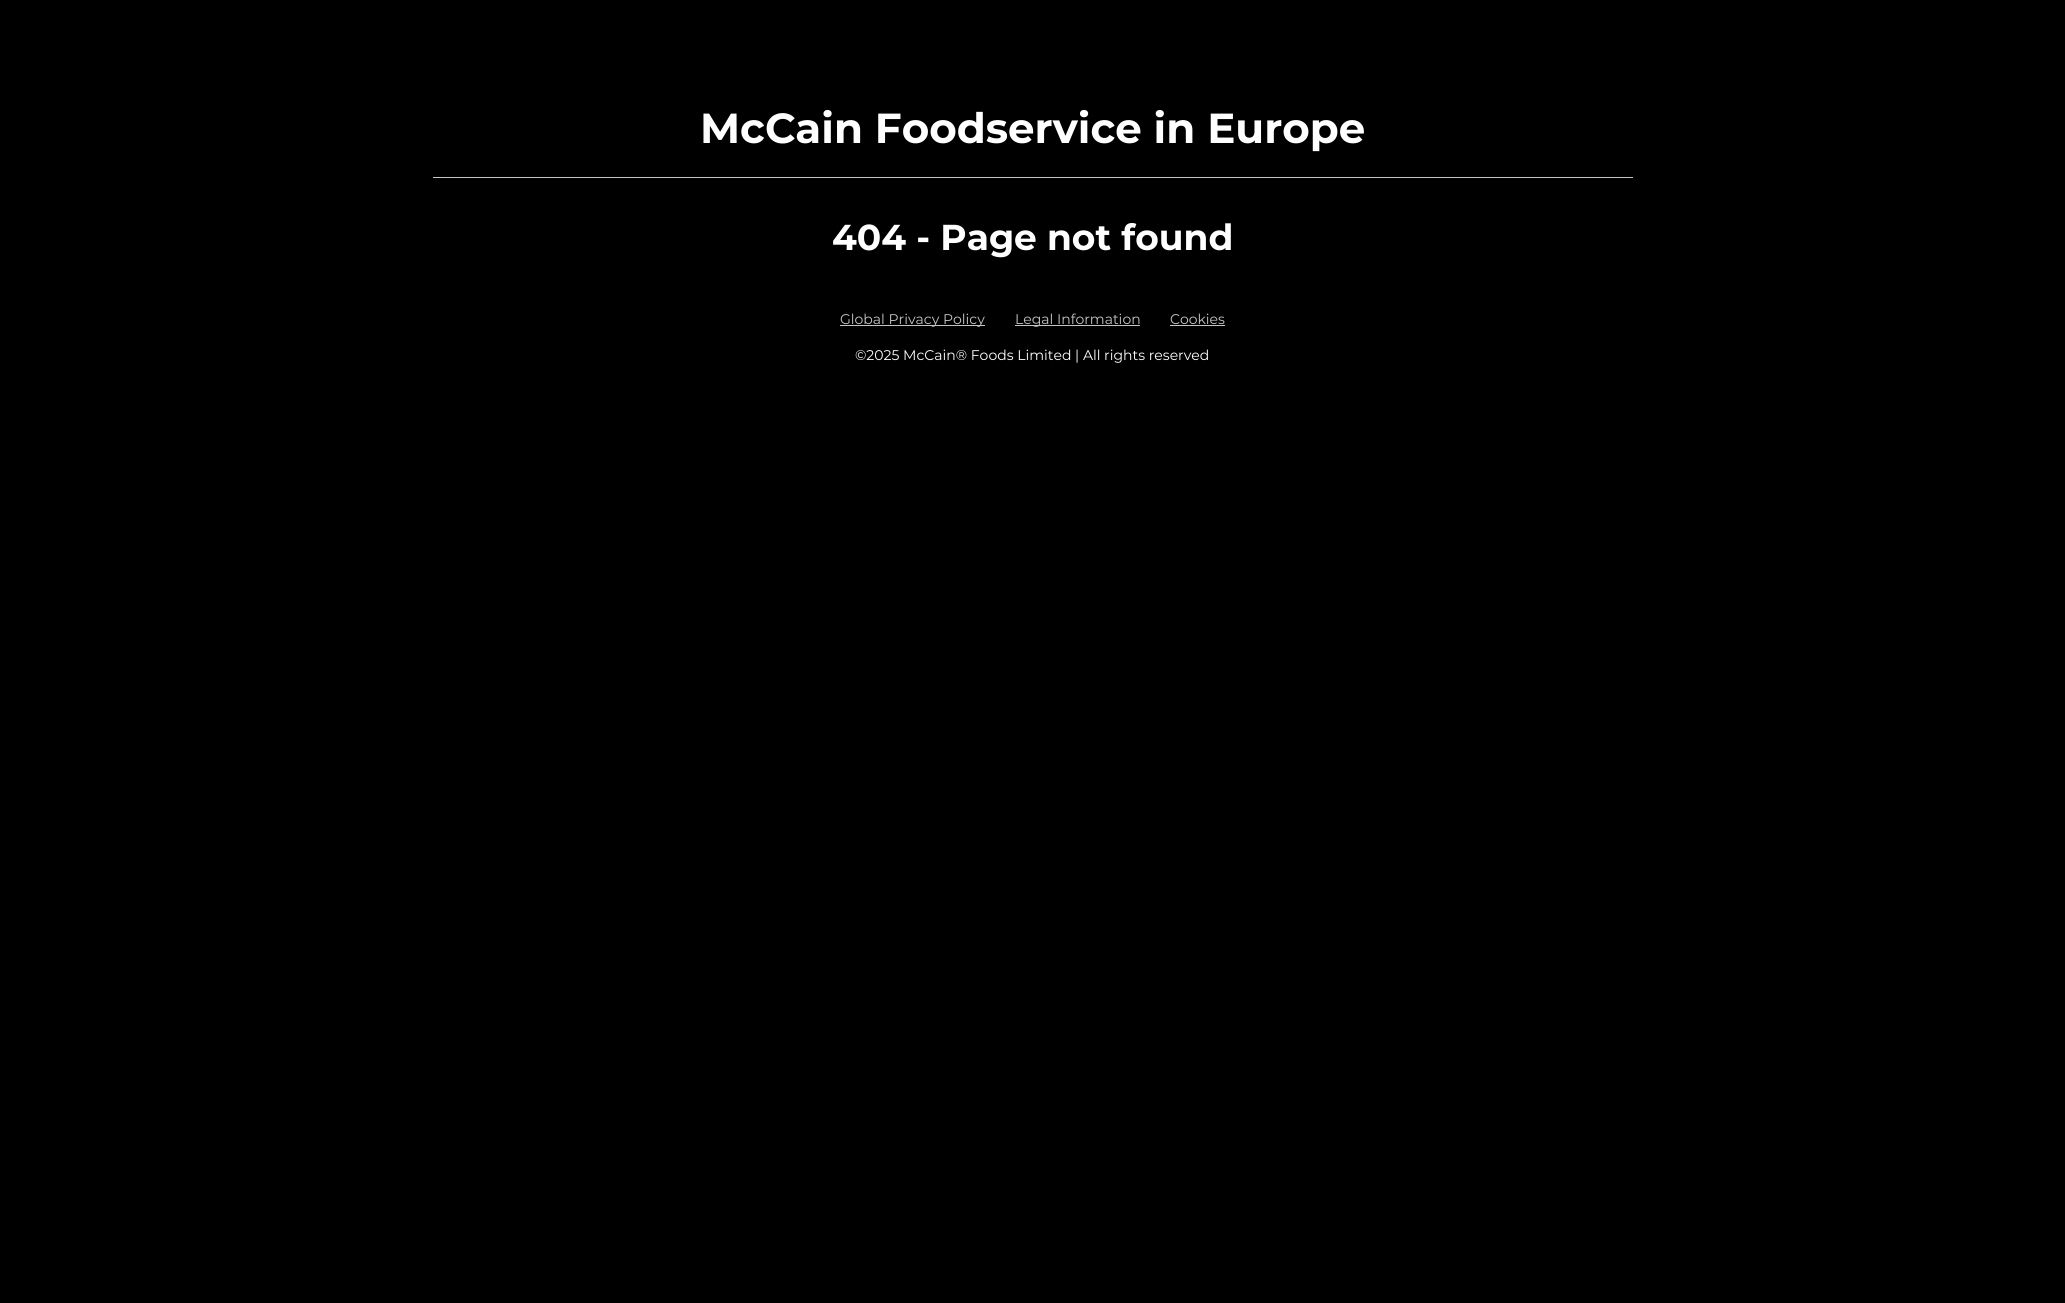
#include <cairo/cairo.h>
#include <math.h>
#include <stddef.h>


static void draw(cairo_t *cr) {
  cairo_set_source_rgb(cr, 0, 0, 0);
  cairo_paint(cr);
  cairo_set_source_rgb(cr, 196 / 255.0, 197 / 255.0, 197 / 255.0);
  cairo_rectangle(cr, 433, 177, 1200, 1);
  cairo_fill(cr);
  cairo_rectangle(cr, 840, 325, 145, 1);
  cairo_fill(cr);
  cairo_rectangle(cr, 1015, 325, 125, 1);
  cairo_fill(cr);
  cairo_rectangle(cr, 1170, 325, 55, 1);
  cairo_fill(cr);
  cairo_select_font_face(cr, "Montserrat", CAIRO_FONT_SLANT_NORMAL, CAIRO_FONT_WEIGHT_BOLD);
  cairo_set_font_size(cr, 42);
  cairo_set_source_rgb(cr, 1, 1, 1);
  cairo_move_to(cr, 700, 143);
  cairo_show_text(cr, "McCain Foodservice in Europe");
  cairo_set_font_size(cr, 36);
  cairo_move_to(cr, 832, 250);
  cairo_show_text(cr, "404 - Page not found");
  cairo_select_font_face(cr, "Montserrat", CAIRO_FONT_SLANT_NORMAL, CAIRO_FONT_WEIGHT_NORMAL);
  cairo_set_font_size(cr, 14);
  cairo_set_source_rgb(cr, 196 / 255.0, 197 / 255.0, 197 / 255.0);
  cairo_move_to(cr, 840, 324);
  cairo_show_text(cr, "Global Privacy Policy");
  cairo_move_to(cr, 1015, 324);
  cairo_show_text(cr, "Legal Information");
  cairo_move_to(cr, 1170, 324);
  cairo_show_text(cr, "Cookies");
  cairo_set_source_rgb(cr, 1, 1, 1);
  cairo_move_to(cr, 855, 360);
  cairo_show_text(cr, "©2025 McCain® Foods Limited | All rights reserved");
}

int main(void) {
  cairo_surface_t *surface = cairo_image_surface_create(CAIRO_FORMAT_RGB24, 2065, 1303);
  cairo_t *cr = cairo_create(surface);
  cairo_font_options_t *options = cairo_font_options_create();
  cairo_font_options_set_hint_metrics(options, CAIRO_HINT_METRICS_OFF);
  cairo_font_options_set_hint_style(options, CAIRO_HINT_STYLE_NONE);
  cairo_set_font_options(cr, options);
  cairo_set_miter_limit(cr, 4);
  draw(cr);
  cairo_surface_write_to_png(surface, "out.png");
  cairo_font_options_destroy(options);
  cairo_destroy(cr);
  cairo_surface_destroy(surface);
  return 0;
}
